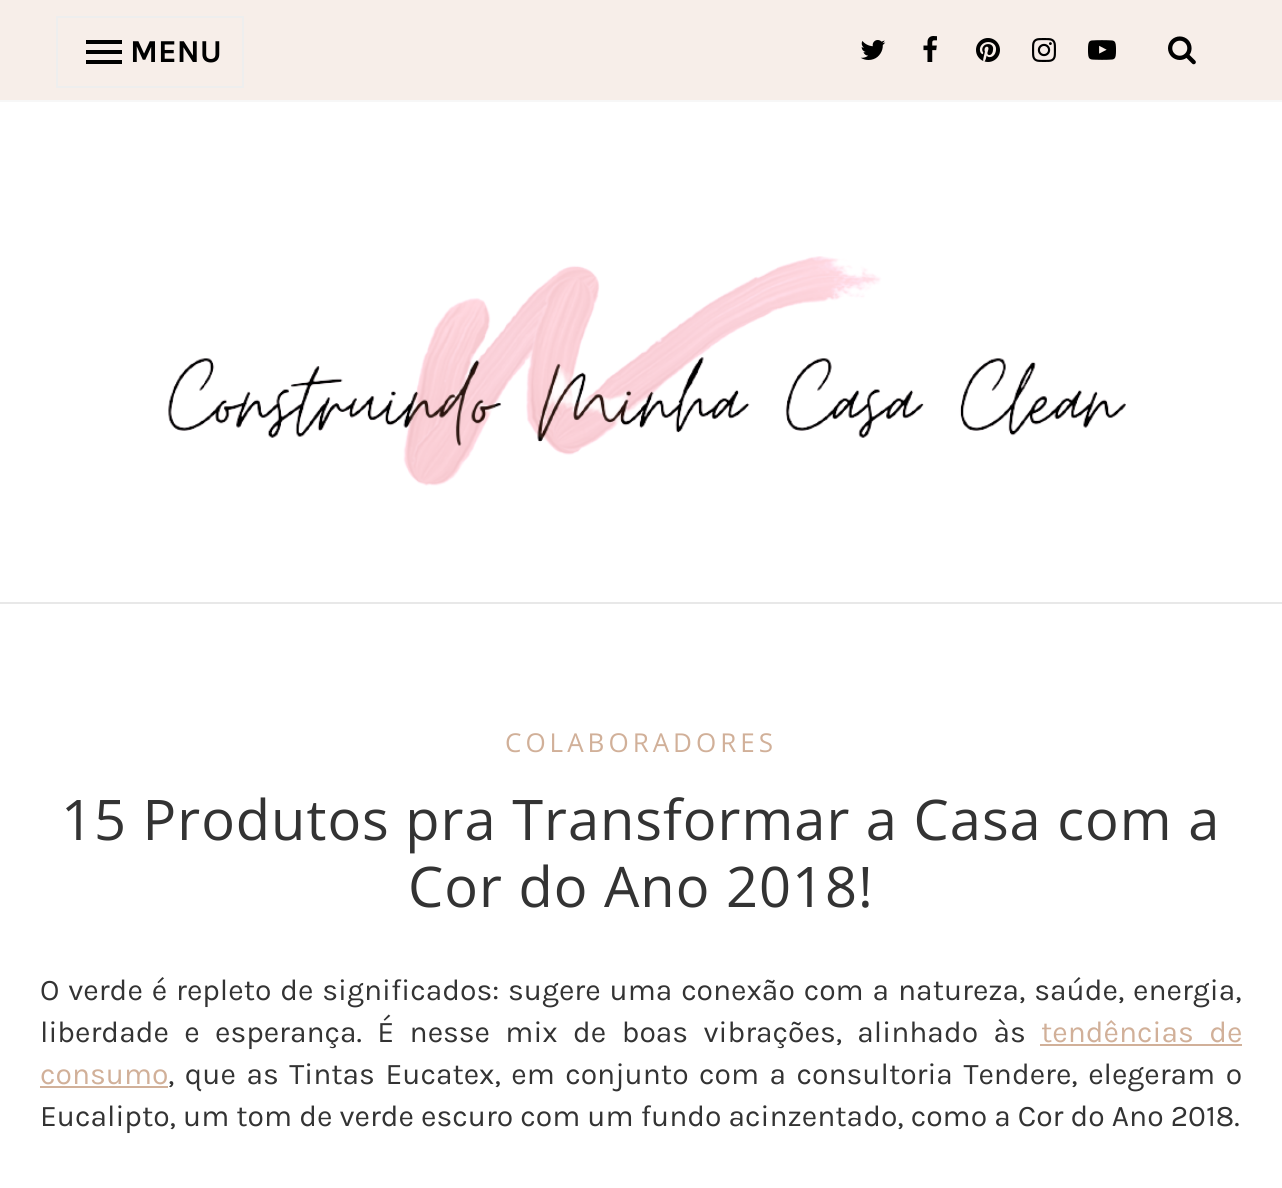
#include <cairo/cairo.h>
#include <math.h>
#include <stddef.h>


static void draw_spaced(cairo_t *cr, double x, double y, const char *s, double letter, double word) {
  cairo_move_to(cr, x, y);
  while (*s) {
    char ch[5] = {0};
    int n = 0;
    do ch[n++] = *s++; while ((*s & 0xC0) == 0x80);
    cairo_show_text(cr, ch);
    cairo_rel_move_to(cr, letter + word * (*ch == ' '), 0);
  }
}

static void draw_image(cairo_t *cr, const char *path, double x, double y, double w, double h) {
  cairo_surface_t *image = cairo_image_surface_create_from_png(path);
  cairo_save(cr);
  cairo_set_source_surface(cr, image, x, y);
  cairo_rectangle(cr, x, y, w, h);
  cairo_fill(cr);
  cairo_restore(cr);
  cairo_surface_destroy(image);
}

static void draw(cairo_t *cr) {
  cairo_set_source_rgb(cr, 1, 1, 1);
  cairo_paint(cr);
  cairo_set_source_rgb(cr, 232 / 255.0, 232 / 255.0, 232 / 255.0);
  cairo_rectangle(cr, 0, 602, 1282, 2);
  cairo_fill(cr);
  cairo_set_source_rgb(cr, 247 / 255.0, 238 / 255.0, 233 / 255.0);
  cairo_rectangle(cr, 0, 0, 1282, 100);
  cairo_fill(cr);
  cairo_set_source_rgb(cr, 247 / 255.0, 247 / 255.0, 247 / 255.0);
  cairo_rectangle(cr, 0, 100, 1282, 2);
  cairo_fill(cr);
  cairo_rectangle(cr, 57, 17, 186, 70);
  cairo_set_source_rgb(cr, 238 / 255.0, 238 / 255.0, 238 / 255.0);
  cairo_stroke(cr);
  cairo_set_source_rgb(cr, 0, 0, 0);
  cairo_rectangle(cr, 86, 40, 36, 4);
  cairo_fill(cr);
  cairo_rectangle(cr, 86, 50, 36, 4);
  cairo_fill(cr);
  cairo_rectangle(cr, 86, 60, 36, 4);
  cairo_fill(cr);
  draw_image(cr, "images/1.png", 860, 40, 26, 20);
  draw_image(cr, "images/2.png", 923, 36, 14, 26);
  draw_image(cr, "images/3.png", 976, 38, 24, 24);
  draw_image(cr, "images/4.png", 1032, 38, 24, 24);
  draw_image(cr, "images/5.png", 1088, 40, 28, 20);
  draw_image(cr, "images/6.png", 1168, 36, 28, 29);
  draw_image(cr, "images/7.png", 168, 256, 958, 230);
  cairo_set_source_rgb(cr, 209 / 255.0, 176 / 255.0, 153 / 255.0);
  cairo_rectangle(cr, 1040, 1044, 202, 2);
  cairo_fill(cr);
  cairo_rectangle(cr, 40, 1086, 128, 2);
  cairo_fill(cr);
  cairo_select_font_face(cr, "Karla", CAIRO_FONT_SLANT_NORMAL, CAIRO_FONT_WEIGHT_BOLD);
  cairo_set_font_size(cr, 32);
  cairo_set_source_rgb(cr, 0, 0, 0);
  cairo_move_to(cr, 130, 62);
  cairo_show_text(cr, "MENU");
  cairo_select_font_face(cr, "Open Sans", CAIRO_FONT_SLANT_NORMAL, CAIRO_FONT_WEIGHT_NORMAL);
  cairo_set_font_size(cr, 26);
  cairo_set_source_rgb(cr, 209 / 255.0, 176 / 255.0, 153 / 255.0);
  draw_spaced(cr, 505, 752, "COLABORADORES", 4, 0);
  cairo_set_font_size(cr, 56);
  cairo_set_source_rgb(cr, 51 / 255.0, 51 / 255.0, 51 / 255.0);
  draw_spaced(cr, 61, 840, "15 Produtos pra Transformar a Casa com a", 1, 0);
  draw_spaced(cr, 408, 907, "Cor do Ano 2018!", 1, 0);
  cairo_select_font_face(cr, "Karla", CAIRO_FONT_SLANT_NORMAL, CAIRO_FONT_WEIGHT_NORMAL);
  cairo_set_font_size(cr, 30);
  draw_spaced(cr, 40, 1000, "O verde é repleto de significados: sugere uma conexão com a natureza, saúde, energia,", 0, 1.8);
  draw_spaced(cr, 40, 1042, "liberdade e esperança. É nesse mix de boas vibrações, alinhado às", 0, 8.25);
  cairo_set_source_rgb(cr, 209 / 255.0, 176 / 255.0, 153 / 255.0);
  draw_spaced(cr, 1041, 1042, "tendências de", 0, 8.25);
  cairo_move_to(cr, 40, 1084);
  cairo_show_text(cr, "consumo");
  cairo_set_source_rgb(cr, 51 / 255.0, 51 / 255.0, 51 / 255.0);
  draw_spaced(cr, 168, 1084, ", que as Tintas Eucatex, em conjunto com a consultoria Tendere, elegeram o", 0, 3.4);
  cairo_move_to(cr, 40, 1126);
  cairo_show_text(cr, "Eucalipto, um tom de verde escuro com um fundo acinzentado, como a Cor do Ano 2018.");
}

int main(void) {
  cairo_surface_t *surface = cairo_image_surface_create(CAIRO_FORMAT_RGB24, 1282, 1188);
  cairo_t *cr = cairo_create(surface);
  cairo_font_options_t *options = cairo_font_options_create();
  cairo_font_options_set_hint_metrics(options, CAIRO_HINT_METRICS_OFF);
  cairo_font_options_set_hint_style(options, CAIRO_HINT_STYLE_NONE);
  cairo_set_font_options(cr, options);
  cairo_set_miter_limit(cr, 4);
  draw(cr);
  cairo_surface_write_to_png(surface, "out.png");
  cairo_font_options_destroy(options);
  cairo_destroy(cr);
  cairo_surface_destroy(surface);
  return 0;
}
